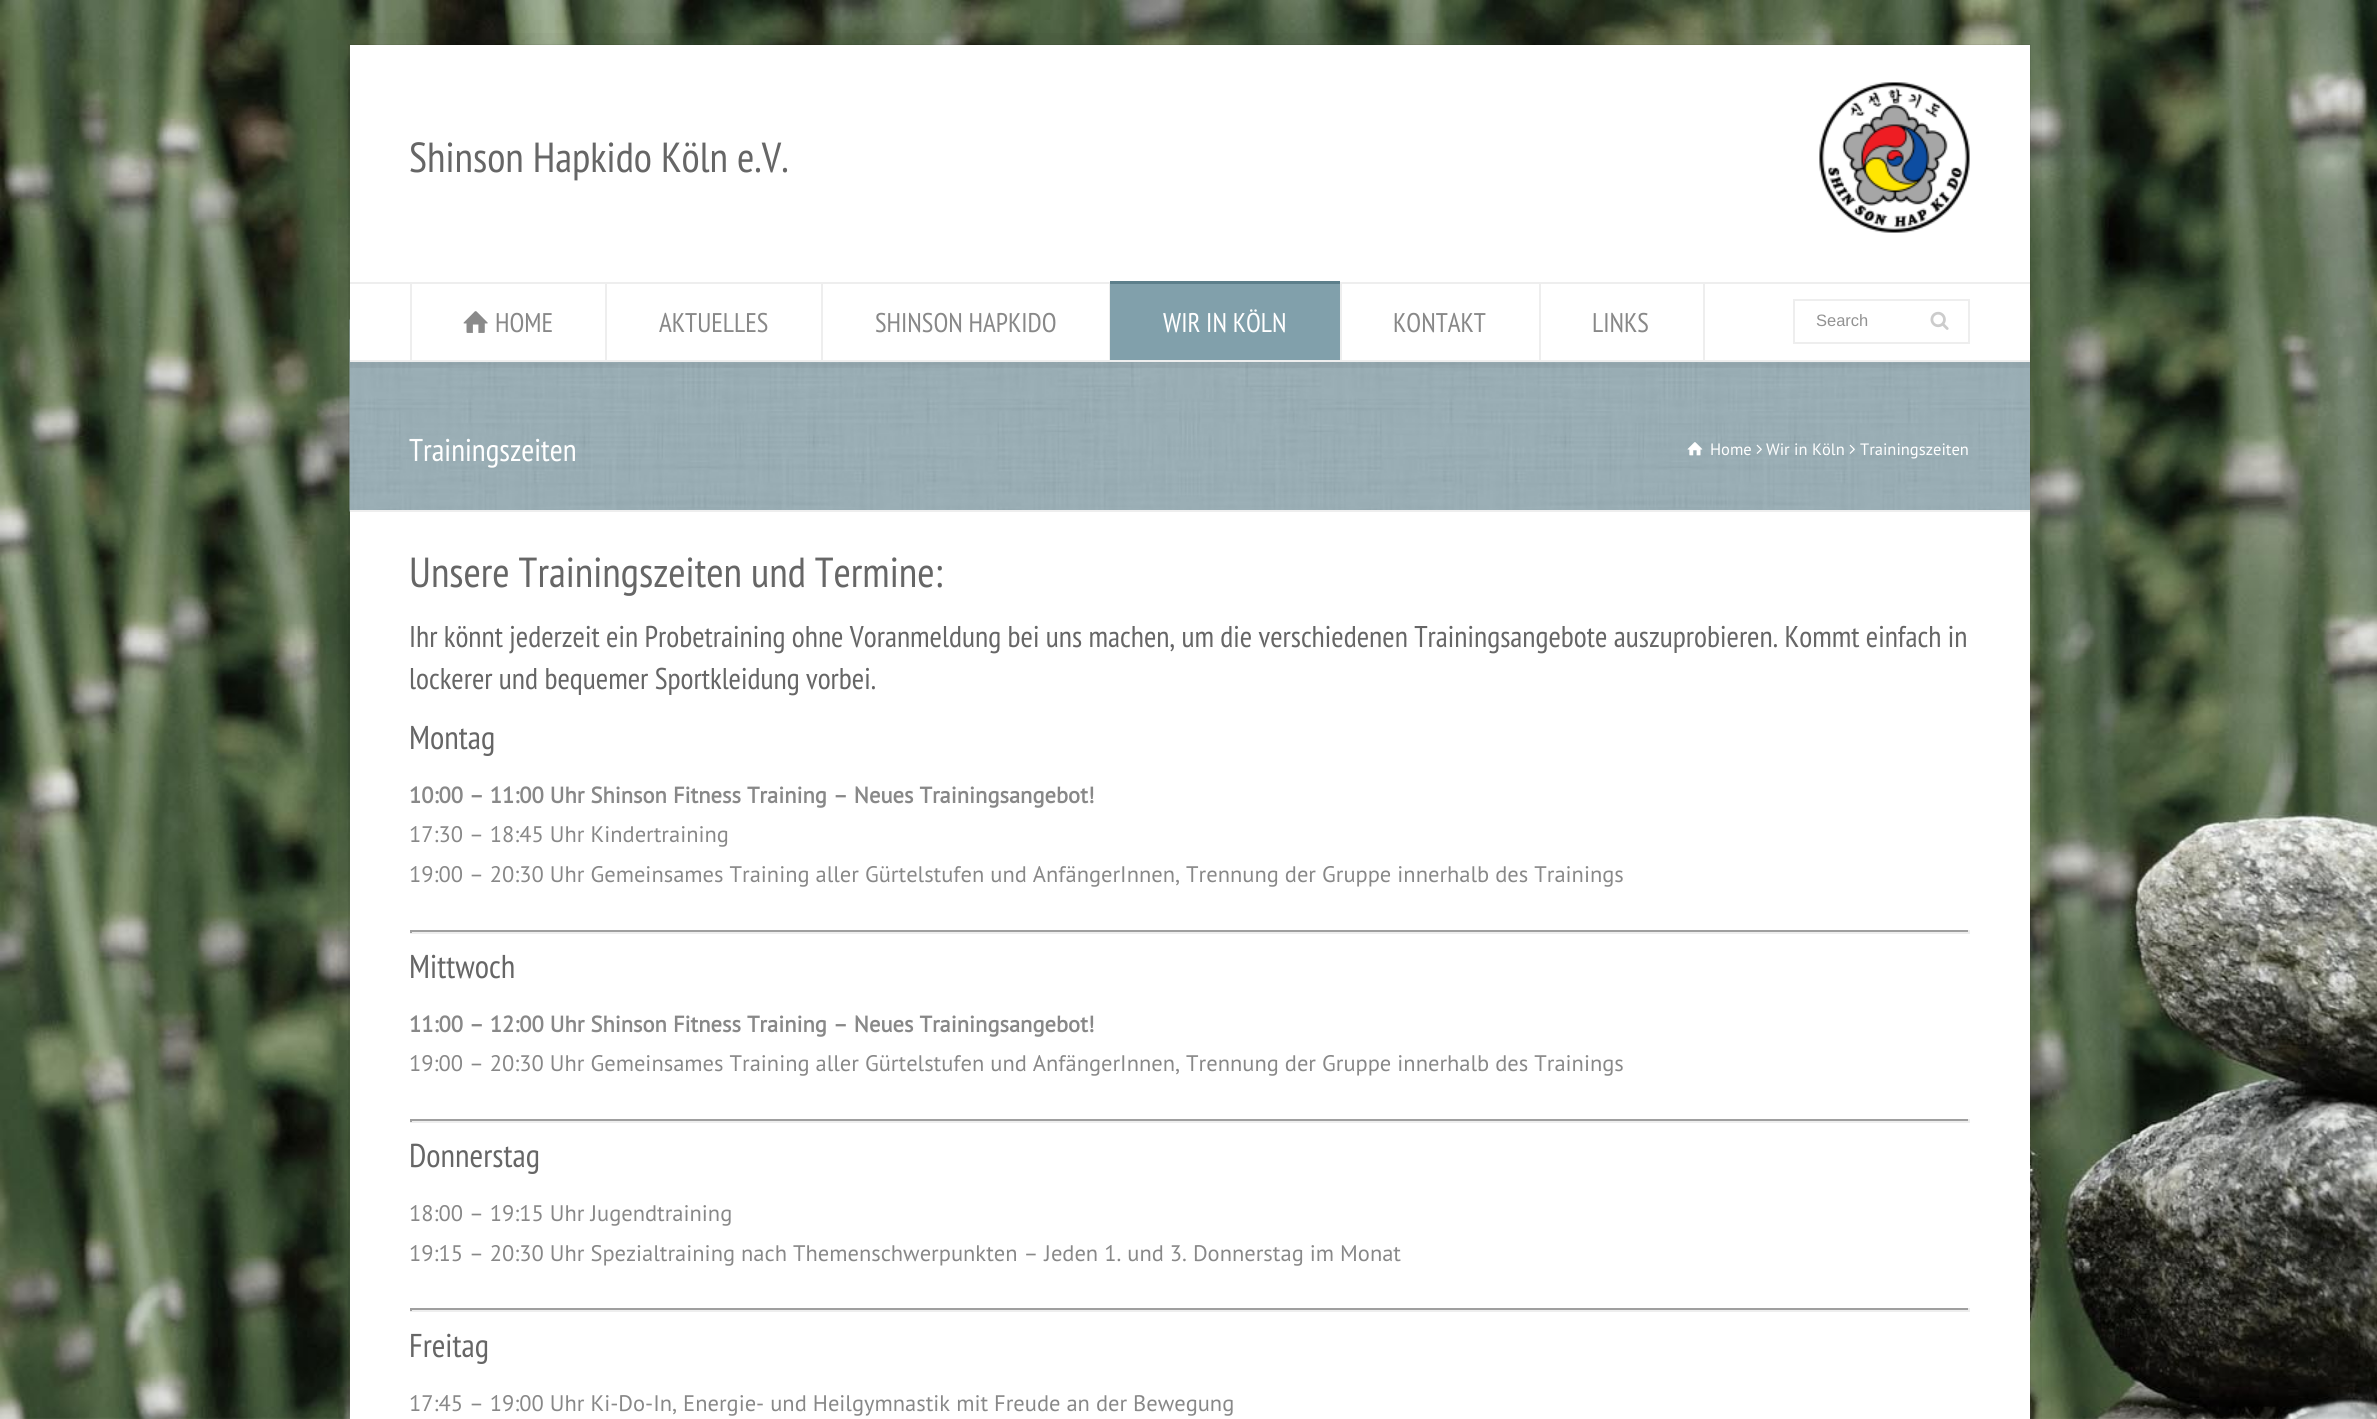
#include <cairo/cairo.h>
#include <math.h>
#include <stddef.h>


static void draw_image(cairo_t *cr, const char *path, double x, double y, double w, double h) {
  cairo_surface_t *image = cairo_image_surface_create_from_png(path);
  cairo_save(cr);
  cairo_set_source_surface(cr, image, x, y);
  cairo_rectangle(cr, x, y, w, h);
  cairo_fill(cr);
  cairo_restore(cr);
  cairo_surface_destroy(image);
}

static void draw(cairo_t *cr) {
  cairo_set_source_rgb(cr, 1, 1, 1);
  cairo_paint(cr);
  draw_image(cr, "images/1.png", 0, 0, 2377, 1419);
  cairo_rectangle(cr, 349, 45, 1681, 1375);
  cairo_set_source_rgba(cr, 4 / 255.0, 4 / 255.0, 4 / 255.0, 0.06);
  cairo_stroke(cr);
  cairo_rectangle(cr, 344, 39, 1692, 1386);
  cairo_set_source_rgba(cr, 0, 0, 0, 0.03);
  cairo_set_line_width(cr, 12);
  cairo_stroke(cr);
  cairo_set_source_rgb(cr, 1, 1, 1);
  cairo_rectangle(cr, 350, 45, 1680, 237);
  cairo_fill(cr);
  draw_image(cr, "images/2.png", 1819, 82, 151, 151);
  cairo_set_source_rgb(cr, 155 / 255.0, 175 / 255.0, 182 / 255.0);
  cairo_rectangle(cr, 2029, 362, 1, 148);
  cairo_fill(cr);
  draw_image(cr, "images/5.png", 349, 319, 1681, 193);
  cairo_set_source_rgba(cr, 0, 0, 0, 0.04);
  cairo_new_path(cr);
  cairo_move_to(cr, 350, 362);
  cairo_line_to(cr, 350, 368);
  cairo_line_to(cr, 2030, 368);
  cairo_line_to(cr, 2030, 288);
  cairo_line_to(cr, 2030, 362);
  cairo_close_path(cr);
  cairo_fill(cr);
  cairo_set_source_rgb(cr, 1, 1, 1);
  cairo_rectangle(cr, 350, 284, 1680, 76);
  cairo_fill(cr);
  cairo_set_source_rgb(cr, 238 / 255.0, 238 / 255.0, 238 / 255.0);
  cairo_rectangle(cr, 350, 282, 1680, 2);
  cairo_fill(cr);
  cairo_rectangle(cr, 350, 360, 1680, 2);
  cairo_fill(cr);
  cairo_rectangle(cr, 605, 284, 2, 76);
  cairo_fill(cr);
  cairo_rectangle(cr, 410, 284, 2, 76);
  cairo_fill(cr);
  draw_image(cr, "images/3.png", 463, 311, 25, 22);
  cairo_rectangle(cr, 821, 284, 2, 76);
  cairo_fill(cr);
  cairo_rectangle(cr, 1109, 284, 1, 76);
  cairo_fill(cr);
  cairo_set_source_rgb(cr, 129 / 255.0, 160 / 255.0, 171 / 255.0);
  cairo_rectangle(cr, 1110, 284, 230, 76);
  cairo_fill(cr);
  cairo_set_source_rgb(cr, 238 / 255.0, 238 / 255.0, 238 / 255.0);
  cairo_rectangle(cr, 1340, 284, 2, 76);
  cairo_fill(cr);
  cairo_set_source_rgb(cr, 93 / 255.0, 127 / 255.0, 139 / 255.0);
  cairo_rectangle(cr, 1110, 281, 230, 3);
  cairo_fill(cr);
  cairo_set_source_rgb(cr, 238 / 255.0, 238 / 255.0, 238 / 255.0);
  cairo_rectangle(cr, 1539, 284, 2, 76);
  cairo_fill(cr);
  cairo_rectangle(cr, 1703, 284, 2, 76);
  cairo_fill(cr);
  cairo_rectangle(cr, 1794, 300, 175, 43);
  cairo_set_line_width(cr, 2);
  cairo_stroke(cr);
  draw_image(cr, "images/4.png", 1930, 311, 19, 19);
  cairo_rectangle(cr, 350, 510, 1680, 2);
  cairo_fill(cr);
  draw_image(cr, "images/6.png", 1687, 442, 16, 14);
  draw_image(cr, "images/7.png", 1756, 444, 6, 10);
  draw_image(cr, "images/8.png", 1849, 444, 6, 10);
  cairo_set_source_rgb(cr, 1, 1, 1);
  cairo_rectangle(cr, 350, 512, 1680, 907);
  cairo_fill(cr);
  cairo_set_source_rgb(cr, 159 / 255.0, 159 / 255.0, 159 / 255.0);
  cairo_rectangle(cr, 410, 930, 1560, 2);
  cairo_fill(cr);
  cairo_set_source_rgb(cr, 238 / 255.0, 238 / 255.0, 238 / 255.0);
  cairo_rectangle(cr, 1968, 930, 2, 3);
  cairo_fill(cr);
  cairo_rectangle(cr, 410, 932, 1560, 2);
  cairo_fill(cr);
  cairo_set_source_rgb(cr, 159 / 255.0, 159 / 255.0, 159 / 255.0);
  cairo_rectangle(cr, 410, 930, 2, 3);
  cairo_fill(cr);
  cairo_rectangle(cr, 410, 1119, 1560, 2);
  cairo_fill(cr);
  cairo_set_source_rgb(cr, 238 / 255.0, 238 / 255.0, 238 / 255.0);
  cairo_rectangle(cr, 1968, 1119, 2, 3);
  cairo_fill(cr);
  cairo_rectangle(cr, 410, 1121, 1560, 2);
  cairo_fill(cr);
  cairo_set_source_rgb(cr, 159 / 255.0, 159 / 255.0, 159 / 255.0);
  cairo_rectangle(cr, 410, 1119, 2, 3);
  cairo_fill(cr);
  cairo_rectangle(cr, 410, 1308, 1560, 2);
  cairo_fill(cr);
  cairo_set_source_rgb(cr, 238 / 255.0, 238 / 255.0, 238 / 255.0);
  cairo_rectangle(cr, 1968, 1308, 2, 3);
  cairo_fill(cr);
  cairo_rectangle(cr, 410, 1310, 1560, 2);
  cairo_fill(cr);
  cairo_set_source_rgb(cr, 159 / 255.0, 159 / 255.0, 159 / 255.0);
  cairo_rectangle(cr, 410, 1308, 2, 3);
  cairo_fill(cr);
  cairo_select_font_face(cr, "PT Sans Narrow", CAIRO_FONT_SLANT_NORMAL, CAIRO_FONT_WEIGHT_NORMAL);
  cairo_set_font_size(cr, 42);
  cairo_set_source_rgb(cr, 102 / 255.0, 102 / 255.0, 102 / 255.0);
  cairo_move_to(cr, 409, 172);
  cairo_show_text(cr, "Shinson Hapkido Köln e.V.");
  cairo_set_font_size(cr, 27);
  cairo_set_source_rgb(cr, 136 / 255.0, 136 / 255.0, 136 / 255.0);
  cairo_move_to(cr, 495, 332);
  cairo_show_text(cr, "HOME");
  cairo_move_to(cr, 659, 332);
  cairo_show_text(cr, "AKTUELLES");
  cairo_move_to(cr, 875, 332);
  cairo_show_text(cr, "SHINSON HAPKIDO");
  cairo_set_source_rgb(cr, 1, 1, 1);
  cairo_move_to(cr, 1163, 332);
  cairo_show_text(cr, "WIR IN KÖLN");
  cairo_set_source_rgb(cr, 136 / 255.0, 136 / 255.0, 136 / 255.0);
  cairo_move_to(cr, 1393, 332);
  cairo_show_text(cr, "KONTAKT");
  cairo_move_to(cr, 1592, 332);
  cairo_show_text(cr, "LINKS");
  cairo_select_font_face(cr, "Liberation Sans", CAIRO_FONT_SLANT_NORMAL, CAIRO_FONT_WEIGHT_NORMAL);
  cairo_set_font_size(cr, 16.5);
  cairo_set_source_rgb(cr, 146 / 255.0, 146 / 255.0, 146 / 255.0);
  cairo_move_to(cr, 1816, 326);
  cairo_show_text(cr, "Search");
  cairo_select_font_face(cr, "PT Sans Narrow", CAIRO_FONT_SLANT_NORMAL, CAIRO_FONT_WEIGHT_NORMAL);
  cairo_set_font_size(cr, 31.5);
  cairo_set_source_rgb(cr, 1, 1, 1);
  cairo_move_to(cr, 409, 461);
  cairo_show_text(cr, "Trainingszeiten");
  cairo_select_font_face(cr, "PT Sans", CAIRO_FONT_SLANT_NORMAL, CAIRO_FONT_WEIGHT_NORMAL);
  cairo_set_font_size(cr, 16.5);
  cairo_move_to(cr, 1710, 455);
  cairo_show_text(cr, "Home");
  cairo_move_to(cr, 1766, 455);
  cairo_show_text(cr, "Wir in Köln");
  cairo_move_to(cr, 1860, 455);
  cairo_show_text(cr, "Trainingszeiten");
  cairo_select_font_face(cr, "PT Sans Narrow", CAIRO_FONT_SLANT_NORMAL, CAIRO_FONT_WEIGHT_NORMAL);
  cairo_set_font_size(cr, 42);
  cairo_set_source_rgb(cr, 102 / 255.0, 102 / 255.0, 102 / 255.0);
  cairo_move_to(cr, 409, 587);
  cairo_show_text(cr, "Unsere Trainingszeiten und Termine:");
  cairo_set_font_size(cr, 30);
  cairo_move_to(cr, 409, 647);
  cairo_show_text(cr, "Ihr könnt jederzeit ein Probetraining ohne Voranmeldung bei uns machen, um die verschiedenen Trainingsangebote auszuprobieren. Kommt einfach in");
  cairo_move_to(cr, 409, 689);
  cairo_show_text(cr, "lockerer und bequemer Sportkleidung vorbei.");
  cairo_set_font_size(cr, 33);
  cairo_move_to(cr, 409, 749);
  cairo_show_text(cr, "Montag");
  cairo_select_font_face(cr, "PT Sans", CAIRO_FONT_SLANT_NORMAL, CAIRO_FONT_WEIGHT_BOLD);
  cairo_set_font_size(cr, 22.5);
  cairo_set_source_rgb(cr, 136 / 255.0, 136 / 255.0, 136 / 255.0);
  cairo_move_to(cr, 409, 803);
  cairo_show_text(cr, "10:00 – 11:00 Uhr Shinson Fitness Training – Neues Trainingsangebot!");
  cairo_select_font_face(cr, "PT Sans", CAIRO_FONT_SLANT_NORMAL, CAIRO_FONT_WEIGHT_NORMAL);
  cairo_move_to(cr, 409, 842);
  cairo_show_text(cr, "17:30 – 18:45 Uhr Kindertraining");
  cairo_move_to(cr, 409, 882);
  cairo_show_text(cr, "19:00 – 20:30 Uhr Gemeinsames Training aller Gürtelstufen und AnfängerInnen, Trennung der Gruppe innerhalb des Trainings");
  cairo_select_font_face(cr, "PT Sans Narrow", CAIRO_FONT_SLANT_NORMAL, CAIRO_FONT_WEIGHT_NORMAL);
  cairo_set_font_size(cr, 33);
  cairo_set_source_rgb(cr, 102 / 255.0, 102 / 255.0, 102 / 255.0);
  cairo_move_to(cr, 409, 978);
  cairo_show_text(cr, "Mittwoch");
  cairo_select_font_face(cr, "PT Sans", CAIRO_FONT_SLANT_NORMAL, CAIRO_FONT_WEIGHT_BOLD);
  cairo_set_font_size(cr, 22.5);
  cairo_set_source_rgb(cr, 136 / 255.0, 136 / 255.0, 136 / 255.0);
  cairo_move_to(cr, 409, 1032);
  cairo_show_text(cr, "11:00 – 12:00 Uhr Shinson Fitness Training – Neues Trainingsangebot!");
  cairo_select_font_face(cr, "PT Sans", CAIRO_FONT_SLANT_NORMAL, CAIRO_FONT_WEIGHT_NORMAL);
  cairo_move_to(cr, 409, 1071);
  cairo_show_text(cr, "19:00 – 20:30 Uhr Gemeinsames Training aller Gürtelstufen und AnfängerInnen, Trennung der Gruppe innerhalb des Trainings");
  cairo_select_font_face(cr, "PT Sans Narrow", CAIRO_FONT_SLANT_NORMAL, CAIRO_FONT_WEIGHT_NORMAL);
  cairo_set_font_size(cr, 33);
  cairo_set_source_rgb(cr, 102 / 255.0, 102 / 255.0, 102 / 255.0);
  cairo_move_to(cr, 409, 1167);
  cairo_show_text(cr, "Donnerstag");
  cairo_select_font_face(cr, "PT Sans", CAIRO_FONT_SLANT_NORMAL, CAIRO_FONT_WEIGHT_NORMAL);
  cairo_set_font_size(cr, 22.5);
  cairo_set_source_rgb(cr, 136 / 255.0, 136 / 255.0, 136 / 255.0);
  cairo_move_to(cr, 409, 1221);
  cairo_show_text(cr, "18:00 – 19:15 Uhr Jugendtraining");
  cairo_move_to(cr, 409, 1261);
  cairo_show_text(cr, "19:15 – 20:30 Uhr Spezialtraining nach Themenschwerpunkten – Jeden 1. und 3. Donnerstag im Monat");
  cairo_select_font_face(cr, "PT Sans Narrow", CAIRO_FONT_SLANT_NORMAL, CAIRO_FONT_WEIGHT_NORMAL);
  cairo_set_font_size(cr, 33);
  cairo_set_source_rgb(cr, 102 / 255.0, 102 / 255.0, 102 / 255.0);
  cairo_move_to(cr, 409, 1357);
  cairo_show_text(cr, "Freitag");
  cairo_select_font_face(cr, "PT Sans", CAIRO_FONT_SLANT_NORMAL, CAIRO_FONT_WEIGHT_NORMAL);
  cairo_set_font_size(cr, 22.5);
  cairo_set_source_rgb(cr, 136 / 255.0, 136 / 255.0, 136 / 255.0);
  cairo_move_to(cr, 409, 1411);
  cairo_show_text(cr, "17:45 – 19:00 Uhr Ki-Do-In, Energie- und Heilgymnastik mit Freude an der Bewegung");
}

int main(void) {
  cairo_surface_t *surface = cairo_image_surface_create(CAIRO_FORMAT_RGB24, 2377, 1419);
  cairo_t *cr = cairo_create(surface);
  cairo_font_options_t *options = cairo_font_options_create();
  cairo_font_options_set_hint_metrics(options, CAIRO_HINT_METRICS_OFF);
  cairo_font_options_set_hint_style(options, CAIRO_HINT_STYLE_NONE);
  cairo_set_font_options(cr, options);
  cairo_set_miter_limit(cr, 4);
  draw(cr);
  cairo_surface_write_to_png(surface, "out.png");
  cairo_font_options_destroy(options);
  cairo_destroy(cr);
  cairo_surface_destroy(surface);
  return 0;
}
